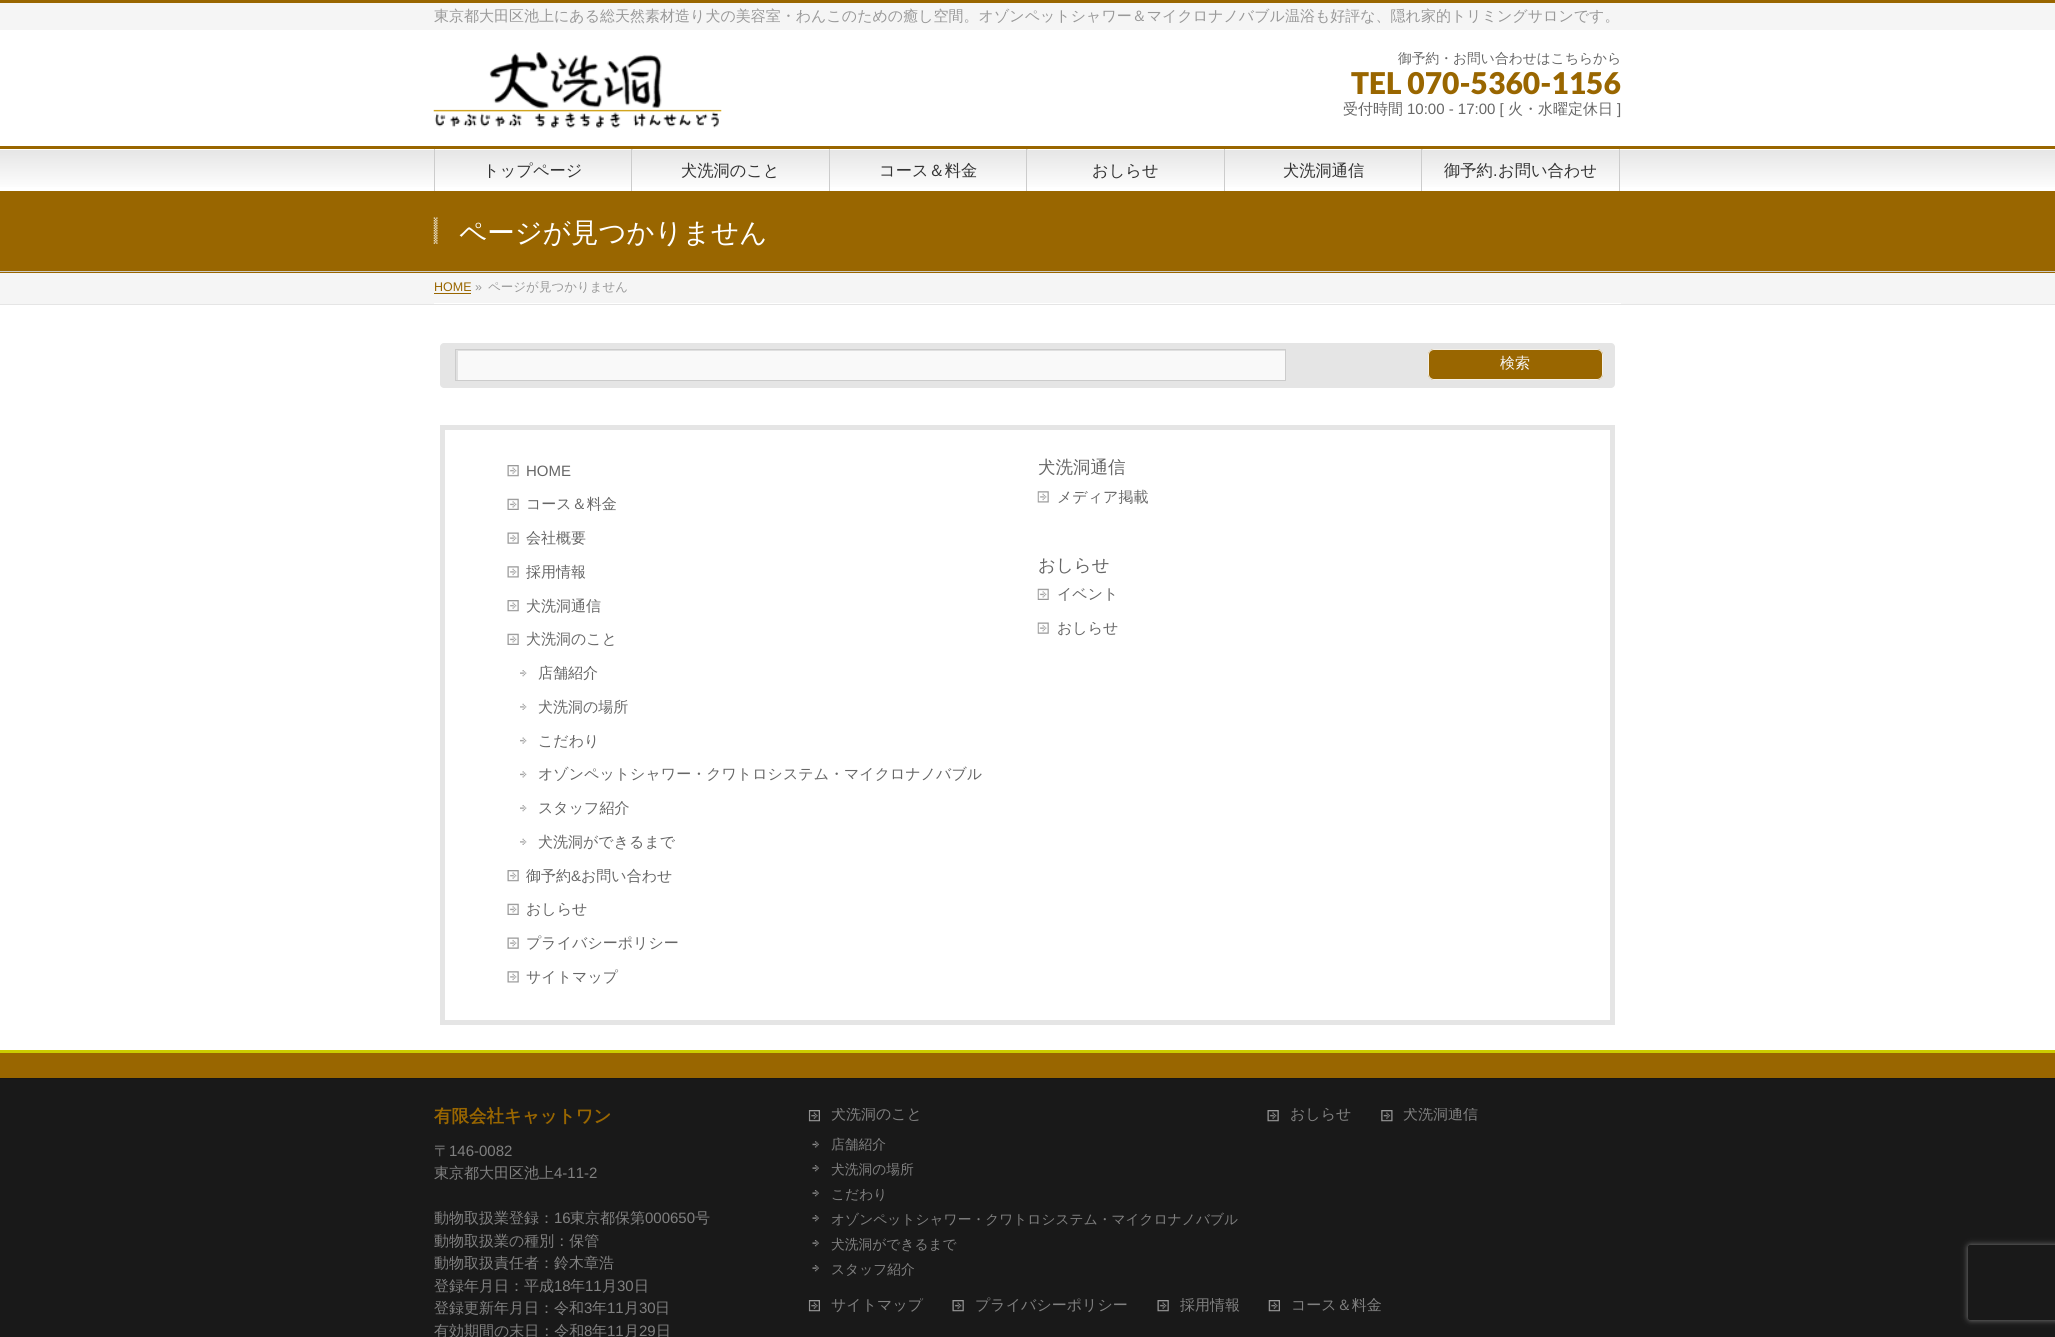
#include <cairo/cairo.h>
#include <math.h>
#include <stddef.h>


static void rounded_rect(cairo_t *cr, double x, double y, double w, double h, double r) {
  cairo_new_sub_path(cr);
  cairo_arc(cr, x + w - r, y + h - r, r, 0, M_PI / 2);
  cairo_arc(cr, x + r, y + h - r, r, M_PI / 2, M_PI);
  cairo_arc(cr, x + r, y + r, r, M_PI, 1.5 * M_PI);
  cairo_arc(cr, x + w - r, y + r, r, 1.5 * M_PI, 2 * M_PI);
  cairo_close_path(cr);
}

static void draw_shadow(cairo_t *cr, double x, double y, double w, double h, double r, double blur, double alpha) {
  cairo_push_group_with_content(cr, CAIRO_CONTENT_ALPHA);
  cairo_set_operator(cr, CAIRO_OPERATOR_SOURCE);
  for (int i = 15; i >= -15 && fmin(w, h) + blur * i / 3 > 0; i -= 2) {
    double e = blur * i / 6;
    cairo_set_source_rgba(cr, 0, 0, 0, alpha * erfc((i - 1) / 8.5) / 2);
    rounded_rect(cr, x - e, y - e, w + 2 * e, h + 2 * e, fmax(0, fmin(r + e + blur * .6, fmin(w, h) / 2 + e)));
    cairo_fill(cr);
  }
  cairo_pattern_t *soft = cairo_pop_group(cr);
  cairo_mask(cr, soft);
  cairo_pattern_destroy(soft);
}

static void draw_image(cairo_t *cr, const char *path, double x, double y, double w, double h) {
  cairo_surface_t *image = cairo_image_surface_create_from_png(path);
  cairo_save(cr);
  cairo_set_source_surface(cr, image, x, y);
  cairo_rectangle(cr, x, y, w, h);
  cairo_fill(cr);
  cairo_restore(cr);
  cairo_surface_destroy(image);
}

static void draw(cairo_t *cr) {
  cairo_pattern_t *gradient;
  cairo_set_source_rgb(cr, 1, 1, 1);
  cairo_paint(cr);
  cairo_set_source_rgb(cr, 245 / 255.0, 245 / 255.0, 245 / 255.0);
  cairo_rectangle(cr, 0, 3, 2055, 27);
  cairo_fill(cr);
  cairo_set_source_rgb(cr, 153 / 255.0, 102 / 255.0, 0);
  cairo_rectangle(cr, 0, 0, 2055, 3);
  cairo_fill(cr);
  draw_image(cr, "images/1.png", 433, 52, 289, 76);
  gradient = cairo_pattern_create_linear(0, 149, 0, 191);
  cairo_pattern_add_color_stop_rgba(gradient, 0, 229 / 255.0, 229 / 255.0, 229 / 255.0, 1);
  cairo_pattern_add_color_stop_rgba(gradient, 1, 1, 1, 1, 1);
  cairo_set_source(cr, gradient);
  cairo_pattern_destroy(gradient);
  cairo_rectangle(cr, 0, 150, 2055, 37);
  cairo_fill(cr);
  cairo_set_source_rgb(cr, 153 / 255.0, 102 / 255.0, 0);
  cairo_rectangle(cr, 0, 146, 2055, 3);
  cairo_fill(cr);
  cairo_set_source_rgb(cr, 204 / 255.0, 204 / 255.0, 204 / 255.0);
  cairo_rectangle(cr, 434, 149, 1, 42);
  cairo_fill(cr);
  gradient = cairo_pattern_create_linear(435, 149, 435, 191);
  cairo_pattern_add_color_stop_rgba(gradient, 0, 229 / 255.0, 229 / 255.0, 229 / 255.0, 1);
  cairo_pattern_add_color_stop_rgba(gradient, 1, 1, 1, 1, 1);
  cairo_set_source(cr, gradient);
  cairo_pattern_destroy(gradient);
  cairo_rectangle(cr, 435, 149, 198, 1);
  cairo_fill(cr);
  cairo_set_source_rgb(cr, 1, 1, 1);
  cairo_rectangle(cr, 435, 149, 196, 1);
  cairo_fill(cr);
  cairo_set_source_rgb(cr, 204 / 255.0, 204 / 255.0, 204 / 255.0);
  cairo_rectangle(cr, 631, 149, 1, 42);
  cairo_fill(cr);
  cairo_rectangle(cr, 829, 149, 1, 42);
  cairo_fill(cr);
  gradient = cairo_pattern_create_linear(830, 149, 830, 191);
  cairo_pattern_add_color_stop_rgba(gradient, 0, 229 / 255.0, 229 / 255.0, 229 / 255.0, 1);
  cairo_pattern_add_color_stop_rgba(gradient, 1, 1, 1, 1, 1);
  cairo_set_source(cr, gradient);
  cairo_pattern_destroy(gradient);
  cairo_rectangle(cr, 830, 149, 198, 1);
  cairo_fill(cr);
  cairo_set_source_rgb(cr, 1, 1, 1);
  cairo_rectangle(cr, 830, 149, 196, 1);
  cairo_fill(cr);
  cairo_set_source_rgb(cr, 204 / 255.0, 204 / 255.0, 204 / 255.0);
  cairo_rectangle(cr, 1026, 149, 1, 42);
  cairo_fill(cr);
  cairo_rectangle(cr, 1224, 149, 1, 42);
  cairo_fill(cr);
  gradient = cairo_pattern_create_linear(1225, 149, 1225, 191);
  cairo_pattern_add_color_stop_rgba(gradient, 0, 229 / 255.0, 229 / 255.0, 229 / 255.0, 1);
  cairo_pattern_add_color_stop_rgba(gradient, 1, 1, 1, 1, 1);
  cairo_set_source(cr, gradient);
  cairo_pattern_destroy(gradient);
  cairo_rectangle(cr, 1225, 149, 198, 1);
  cairo_fill(cr);
  cairo_set_source_rgb(cr, 1, 1, 1);
  cairo_rectangle(cr, 1225, 149, 196, 1);
  cairo_fill(cr);
  cairo_set_source_rgb(cr, 204 / 255.0, 204 / 255.0, 204 / 255.0);
  cairo_rectangle(cr, 1421, 149, 1, 42);
  cairo_fill(cr);
  cairo_rectangle(cr, 1619, 149, 1, 42);
  cairo_fill(cr);
  cairo_set_source_rgb(cr, 153 / 255.0, 102 / 255.0, 0);
  cairo_rectangle(cr, 0, 191, 2055, 82);
  cairo_fill(cr);
  cairo_set_source_rgb(cr, 204 / 255.0, 204 / 255.0, 204 / 255.0);
  cairo_rectangle(cr, 0, 271, 2055, 1);
  cairo_fill(cr);
  draw_image(cr, "images/2.png", 433, 217, 5, 27);
  cairo_set_source_rgb(cr, 245 / 255.0, 245 / 255.0, 245 / 255.0);
  cairo_rectangle(cr, 0, 273, 2055, 31);
  cairo_fill(cr);
  cairo_set_source_rgb(cr, 229 / 255.0, 229 / 255.0, 229 / 255.0);
  cairo_rectangle(cr, 0, 304, 2055, 1);
  cairo_fill(cr);
  cairo_set_source_rgb(cr, 1, 1, 1);
  cairo_rectangle(cr, 434, 303, 1187, 1);
  cairo_fill(cr);
  cairo_set_source_rgb(cr, 153 / 255.0, 102 / 255.0, 0);
  cairo_rectangle(cr, 434, 293, 37, 1);
  cairo_fill(cr);
  cairo_set_source_rgb(cr, 229 / 255.0, 229 / 255.0, 229 / 255.0);
  rounded_rect(cr, 440, 343, 1175, 45, 4);
  cairo_fill(cr);
  cairo_set_source_rgb(cr, 249 / 255.0, 249 / 255.0, 249 / 255.0);
  cairo_rectangle(cr, 458, 351, 827, 29);
  cairo_fill(cr);
  cairo_save(cr);
  cairo_rectangle(cr, 456, 350, 829, 30);
  cairo_clip(cr);
  cairo_set_source_rgb(cr, 224 / 255.0, 224 / 255.0, 224 / 255.0);
  cairo_set_fill_rule(cr, CAIRO_FILL_RULE_EVEN_ODD);
  cairo_new_path(cr);
  cairo_move_to(cr, 444, 343);
  cairo_line_to(cr, 1409, 343);
  cairo_line_to(cr, 1409, 388);
  cairo_line_to(cr, 444, 388);
  cairo_curve_to(cr, 442, 388, 440, 386, 440, 384);
  cairo_line_to(cr, 440, 347);
  cairo_curve_to(cr, 440, 345, 442, 343, 444, 343);
  cairo_close_path(cr);
  cairo_move_to(cr, 458, 351);
  cairo_line_to(cr, 458, 381);
  cairo_line_to(cr, 1286, 381);
  cairo_line_to(cr, 1286, 351);
  cairo_close_path(cr);
  cairo_fill(cr);
  cairo_restore(cr);
  cairo_rectangle(cr, 455.5, 349.5, 830, 31);
  cairo_set_source_rgb(cr, 204 / 255.0, 204 / 255.0, 204 / 255.0);
  cairo_set_line_width(cr, 1);
  cairo_stroke(cr);
  cairo_set_source_rgb(cr, 153 / 255.0, 102 / 255.0, 0);
  rounded_rect(cr, 1428, 349, 175, 31, 6);
  cairo_fill(cr);
  rounded_rect(cr, 1428.5, 349.5, 174, 30, 5.5);
  cairo_set_source_rgba(cr, 1, 1, 1, 0.9);
  cairo_stroke(cr);
  cairo_rectangle(cr, 442.5, 427.5, 1170, 595);
  cairo_set_source_rgb(cr, 229 / 255.0, 229 / 255.0, 229 / 255.0);
  cairo_set_line_width(cr, 5);
  cairo_stroke(cr);
  draw_image(cr, "images/3.png", 507, 465, 12, 12);
  draw_image(cr, "images/4.png", 507, 498, 12, 12);
  draw_image(cr, "images/5.png", 507, 532, 12, 12);
  draw_image(cr, "images/6.png", 507, 566, 12, 12);
  draw_image(cr, "images/3.png", 507, 600, 12, 12);
  draw_image(cr, "images/4.png", 507, 633, 12, 12);
  draw_image(cr, "images/7.png", 520, 670, 7, 7);
  draw_image(cr, "images/8.png", 520, 703, 7, 7);
  draw_image(cr, "images/9.png", 520, 737, 7, 7);
  draw_image(cr, "images/10.png", 520, 771, 7, 7);
  draw_image(cr, "images/7.png", 520, 805, 7, 7);
  draw_image(cr, "images/8.png", 520, 838, 7, 7);
  draw_image(cr, "images/3.png", 507, 870, 12, 12);
  draw_image(cr, "images/4.png", 507, 903, 12, 12);
  draw_image(cr, "images/5.png", 507, 937, 12, 12);
  draw_image(cr, "images/6.png", 507, 971, 12, 12);
  draw_image(cr, "images/11.png", 1037, 491, 12, 12);
  draw_image(cr, "images/12.png", 1037, 588, 12, 12);
  draw_image(cr, "images/13.png", 1037, 622, 12, 12);
  cairo_set_source_rgb(cr, 153 / 255.0, 102 / 255.0, 0);
  cairo_rectangle(cr, 0, 1053, 2055, 25);
  cairo_fill(cr);
  cairo_set_source_rgb(cr, 204 / 255.0, 204 / 255.0, 0);
  cairo_rectangle(cr, 0, 1050, 2055, 3);
  cairo_fill(cr);
  cairo_set_source_rgb(cr, 25 / 255.0, 25 / 255.0, 25 / 255.0);
  cairo_rectangle(cr, 0, 1079, 2055, 258);
  cairo_fill(cr);
  cairo_set_source_rgb(cr, 21 / 255.0, 21 / 255.0, 21 / 255.0);
  cairo_rectangle(cr, 0, 1078, 2055, 1);
  cairo_fill(cr);
  draw_image(cr, "images/14.png", 808, 1110, 12, 12);
  draw_image(cr, "images/15.png", 812, 1141, 7, 7);
  draw_image(cr, "images/16.png", 812, 1165, 7, 7);
  draw_image(cr, "images/16.png", 812, 1190, 7, 7);
  draw_image(cr, "images/16.png", 812, 1215, 7, 7);
  draw_image(cr, "images/16.png", 812, 1240, 7, 7);
  draw_image(cr, "images/16.png", 812, 1265, 7, 7);
  draw_image(cr, "images/17.png", 1267, 1110, 12, 12);
  draw_image(cr, "images/18.png", 1381, 1110, 12, 12);
  draw_image(cr, "images/14.png", 808, 1300, 12, 12);
  draw_image(cr, "images/19.png", 952, 1300, 12, 12);
  draw_image(cr, "images/19.png", 1157, 1300, 12, 12);
  draw_image(cr, "images/20.png", 1268, 1300, 12, 12);
  cairo_save(cr);
  cairo_set_fill_rule(cr, CAIRO_FILL_RULE_EVEN_ODD);
  cairo_new_path(cr);
  cairo_move_to(cr, 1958, 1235);
  cairo_line_to(cr, 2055, 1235);
  cairo_line_to(cr, 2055, 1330);
  cairo_line_to(cr, 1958, 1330);
  cairo_close_path(cr);
  cairo_move_to(cr, 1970.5, 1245);
  cairo_line_to(cr, 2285.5, 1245);
  cairo_curve_to(cr, 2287, 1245, 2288, 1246, 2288, 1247.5);
  cairo_line_to(cr, 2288, 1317.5);
  cairo_curve_to(cr, 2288, 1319, 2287, 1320, 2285.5, 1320);
  cairo_line_to(cr, 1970.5, 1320);
  cairo_curve_to(cr, 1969, 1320, 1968, 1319, 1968, 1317.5);
  cairo_line_to(cr, 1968, 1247.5);
  cairo_curve_to(cr, 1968, 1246, 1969, 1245, 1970.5, 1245);
  cairo_close_path(cr);
  cairo_clip(cr);
  cairo_set_source_rgb(cr, 128 / 255.0, 128 / 255.0, 128 / 255.0);
  draw_shadow(cr, 1968, 1245, 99, 75, 2.5, 3, 1);
  cairo_restore(cr);
  cairo_select_font_face(cr, "WenQuanYi Zen Hei Medium", CAIRO_FONT_SLANT_NORMAL, CAIRO_FONT_WEIGHT_NORMAL);
  cairo_set_font_size(cr, 15);
  cairo_set_source_rgb(cr, 153 / 255.0, 153 / 255.0, 153 / 255.0);
  cairo_move_to(cr, 434, 21);
  cairo_show_text(cr, "東京都大田区池上にある総天然素材造り犬の美容室・わんこのための癒し空間。オゾンペットシャワー＆マイクロナノバブル温浴も好評な、隠れ家的トリミングサロンです。");
  cairo_set_font_size(cr, 13.75);
  cairo_set_source_rgb(cr, 102 / 255.0, 102 / 255.0, 102 / 255.0);
  cairo_move_to(cr, 1398, 63);
  cairo_show_text(cr, "御予約・お問い合わせはこちらから");
  cairo_select_font_face(cr, "Lato Black", CAIRO_FONT_SLANT_NORMAL, CAIRO_FONT_WEIGHT_NORMAL);
  cairo_set_font_size(cr, 30);
  cairo_set_source_rgb(cr, 153 / 255.0, 102 / 255.0, 0);
  cairo_move_to(cr, 1351, 94);
  cairo_show_text(cr, "TEL 070-5360-1156");
  cairo_select_font_face(cr, "WenQuanYi Zen Hei Medium", CAIRO_FONT_SLANT_NORMAL, CAIRO_FONT_WEIGHT_NORMAL);
  cairo_set_font_size(cr, 15);
  cairo_set_source_rgb(cr, 102 / 255.0, 102 / 255.0, 102 / 255.0);
  cairo_move_to(cr, 1343, 114);
  cairo_show_text(cr, "受付時間");
  cairo_select_font_face(cr, "Liberation Sans", CAIRO_FONT_SLANT_NORMAL, CAIRO_FONT_WEIGHT_NORMAL);
  cairo_move_to(cr, 1407, 114);
  cairo_show_text(cr, "10:00 - 17:00 [");
  cairo_select_font_face(cr, "WenQuanYi Zen Hei Medium", CAIRO_FONT_SLANT_NORMAL, CAIRO_FONT_WEIGHT_NORMAL);
  cairo_move_to(cr, 1508, 114);
  cairo_show_text(cr, "火・水曜定休日");
  cairo_select_font_face(cr, "Liberation Sans", CAIRO_FONT_SLANT_NORMAL, CAIRO_FONT_WEIGHT_NORMAL);
  cairo_move_to(cr, 1617, 114);
  cairo_show_text(cr, "]");
  cairo_select_font_face(cr, "WenQuanYi Zen Hei Medium", CAIRO_FONT_SLANT_NORMAL, CAIRO_FONT_WEIGHT_NORMAL);
  cairo_set_font_size(cr, 16.25);
  cairo_set_source_rgb(cr, 51 / 255.0, 51 / 255.0, 51 / 255.0);
  cairo_move_to(cr, 483, 176);
  cairo_show_text(cr, "トップページ");
  cairo_move_to(cr, 681, 176);
  cairo_show_text(cr, "犬洗洞のこと");
  cairo_move_to(cr, 879, 176);
  cairo_show_text(cr, "コース＆料金");
  cairo_move_to(cr, 1092, 176);
  cairo_show_text(cr, "おしらせ");
  cairo_move_to(cr, 1283, 176);
  cairo_show_text(cr, "犬洗洞通信");
  cairo_move_to(cr, 1444, 176);
  cairo_show_text(cr, "御予約");
  cairo_select_font_face(cr, "Liberation Sans", CAIRO_FONT_SLANT_NORMAL, CAIRO_FONT_WEIGHT_NORMAL);
  cairo_move_to(cr, 1493, 176);
  cairo_show_text(cr, ".");
  cairo_select_font_face(cr, "WenQuanYi Zen Hei Medium", CAIRO_FONT_SLANT_NORMAL, CAIRO_FONT_WEIGHT_NORMAL);
  cairo_move_to(cr, 1498, 176);
  cairo_show_text(cr, "お問い合わせ");
  cairo_set_font_size(cr, 27.5);
  cairo_set_source_rgb(cr, 1, 1, 1);
  cairo_move_to(cr, 459, 242);
  cairo_show_text(cr, "ページが見つかりません");
  cairo_select_font_face(cr, "Liberation Sans", CAIRO_FONT_SLANT_NORMAL, CAIRO_FONT_WEIGHT_NORMAL);
  cairo_set_font_size(cr, 12.5);
  cairo_set_source_rgb(cr, 153 / 255.0, 102 / 255.0, 0);
  cairo_move_to(cr, 434, 291);
  cairo_show_text(cr, "HOME");
  cairo_set_source_rgb(cr, 153 / 255.0, 153 / 255.0, 153 / 255.0);
  cairo_move_to(cr, 475, 291);
  cairo_show_text(cr, "»");
  cairo_select_font_face(cr, "WenQuanYi Zen Hei Medium", CAIRO_FONT_SLANT_NORMAL, CAIRO_FONT_WEIGHT_NORMAL);
  cairo_move_to(cr, 488, 291);
  cairo_show_text(cr, "ページが見つかりません");
  cairo_set_font_size(cr, 15);
  cairo_set_source_rgb(cr, 245 / 255.0, 245 / 255.0, 245 / 255.0);
  cairo_move_to(cr, 1500, 368);
  cairo_show_text(cr, "検索");
  cairo_select_font_face(cr, "Liberation Sans", CAIRO_FONT_SLANT_NORMAL, CAIRO_FONT_WEIGHT_NORMAL);
  cairo_set_source_rgb(cr, 102 / 255.0, 102 / 255.0, 102 / 255.0);
  cairo_move_to(cr, 526, 476);
  cairo_show_text(cr, "HOME");
  cairo_select_font_face(cr, "WenQuanYi Zen Hei Medium", CAIRO_FONT_SLANT_NORMAL, CAIRO_FONT_WEIGHT_NORMAL);
  cairo_move_to(cr, 526, 509);
  cairo_show_text(cr, "コース＆料金");
  cairo_move_to(cr, 526, 543);
  cairo_show_text(cr, "会社概要");
  cairo_move_to(cr, 526, 577);
  cairo_show_text(cr, "採用情報");
  cairo_move_to(cr, 526, 611);
  cairo_show_text(cr, "犬洗洞通信");
  cairo_move_to(cr, 526, 644);
  cairo_show_text(cr, "犬洗洞のこと");
  cairo_move_to(cr, 538, 678);
  cairo_show_text(cr, "店舗紹介");
  cairo_move_to(cr, 538, 712);
  cairo_show_text(cr, "犬洗洞の場所");
  cairo_move_to(cr, 538, 746);
  cairo_show_text(cr, "こだわり");
  cairo_move_to(cr, 538, 779);
  cairo_show_text(cr, "オゾンペットシャワー・クワトロシステム・マイクロナノバブル");
  cairo_move_to(cr, 538, 813);
  cairo_show_text(cr, "スタッフ紹介");
  cairo_move_to(cr, 538, 847);
  cairo_show_text(cr, "犬洗洞ができるまで");
  cairo_move_to(cr, 526, 881);
  cairo_show_text(cr, "御予約");
  cairo_select_font_face(cr, "Liberation Sans", CAIRO_FONT_SLANT_NORMAL, CAIRO_FONT_WEIGHT_NORMAL);
  cairo_move_to(cr, 571, 881);
  cairo_show_text(cr, "&");
  cairo_select_font_face(cr, "WenQuanYi Zen Hei Medium", CAIRO_FONT_SLANT_NORMAL, CAIRO_FONT_WEIGHT_NORMAL);
  cairo_move_to(cr, 581, 881);
  cairo_show_text(cr, "お問い合わせ");
  cairo_move_to(cr, 526, 914);
  cairo_show_text(cr, "おしらせ");
  cairo_move_to(cr, 526, 948);
  cairo_show_text(cr, "プライバシーポリシー");
  cairo_move_to(cr, 526, 982);
  cairo_show_text(cr, "サイトマップ");
  cairo_set_font_size(cr, 17.5);
  cairo_move_to(cr, 1038, 473);
  cairo_show_text(cr, "犬洗洞通信");
  cairo_set_font_size(cr, 15);
  cairo_move_to(cr, 1057, 502);
  cairo_show_text(cr, "メディア掲載");
  cairo_set_font_size(cr, 17.5);
  cairo_move_to(cr, 1038, 571);
  cairo_show_text(cr, "おしらせ");
  cairo_set_font_size(cr, 15);
  cairo_move_to(cr, 1057, 599);
  cairo_show_text(cr, "イベント");
  cairo_move_to(cr, 1057, 633);
  cairo_show_text(cr, "おしらせ");
  cairo_select_font_face(cr, "WenQuanYi Zen Hei", CAIRO_FONT_SLANT_NORMAL, CAIRO_FONT_WEIGHT_BOLD);
  cairo_set_font_size(cr, 17.5);
  cairo_set_source_rgb(cr, 153 / 255.0, 102 / 255.0, 0);
  cairo_move_to(cr, 434, 1122);
  cairo_show_text(cr, "有限会社キャットワン");
  cairo_select_font_face(cr, "WenQuanYi Zen Hei Medium", CAIRO_FONT_SLANT_NORMAL, CAIRO_FONT_WEIGHT_NORMAL);
  cairo_set_font_size(cr, 15);
  cairo_set_source_rgb(cr, 128 / 255.0, 128 / 255.0, 128 / 255.0);
  cairo_move_to(cr, 434, 1156);
  cairo_show_text(cr, "〒");
  cairo_select_font_face(cr, "Liberation Sans", CAIRO_FONT_SLANT_NORMAL, CAIRO_FONT_WEIGHT_NORMAL);
  cairo_move_to(cr, 449, 1156);
  cairo_show_text(cr, "146-0082");
  cairo_select_font_face(cr, "WenQuanYi Zen Hei Medium", CAIRO_FONT_SLANT_NORMAL, CAIRO_FONT_WEIGHT_NORMAL);
  cairo_move_to(cr, 434, 1178);
  cairo_show_text(cr, "東京都大田区池上");
  cairo_select_font_face(cr, "Liberation Sans", CAIRO_FONT_SLANT_NORMAL, CAIRO_FONT_WEIGHT_NORMAL);
  cairo_move_to(cr, 554, 1178);
  cairo_show_text(cr, "4-11-2");
  cairo_select_font_face(cr, "WenQuanYi Zen Hei Medium", CAIRO_FONT_SLANT_NORMAL, CAIRO_FONT_WEIGHT_NORMAL);
  cairo_move_to(cr, 434, 1223);
  cairo_show_text(cr, "動物取扱業登録：");
  cairo_select_font_face(cr, "Liberation Sans", CAIRO_FONT_SLANT_NORMAL, CAIRO_FONT_WEIGHT_NORMAL);
  cairo_move_to(cr, 554, 1223);
  cairo_show_text(cr, "16");
  cairo_select_font_face(cr, "WenQuanYi Zen Hei Medium", CAIRO_FONT_SLANT_NORMAL, CAIRO_FONT_WEIGHT_NORMAL);
  cairo_move_to(cr, 570, 1223);
  cairo_show_text(cr, "東京都保第");
  cairo_select_font_face(cr, "Liberation Sans", CAIRO_FONT_SLANT_NORMAL, CAIRO_FONT_WEIGHT_NORMAL);
  cairo_move_to(cr, 645, 1223);
  cairo_show_text(cr, "000650");
  cairo_select_font_face(cr, "WenQuanYi Zen Hei Medium", CAIRO_FONT_SLANT_NORMAL, CAIRO_FONT_WEIGHT_NORMAL);
  cairo_move_to(cr, 695, 1223);
  cairo_show_text(cr, "号");
  cairo_move_to(cr, 434, 1246);
  cairo_show_text(cr, "動物取扱業の種別：保管");
  cairo_move_to(cr, 434, 1268);
  cairo_show_text(cr, "動物取扱責任者：鈴木章浩");
  cairo_move_to(cr, 434, 1291);
  cairo_show_text(cr, "登録年月日：平成");
  cairo_select_font_face(cr, "Liberation Sans", CAIRO_FONT_SLANT_NORMAL, CAIRO_FONT_WEIGHT_NORMAL);
  cairo_move_to(cr, 554, 1291);
  cairo_show_text(cr, "18");
  cairo_select_font_face(cr, "WenQuanYi Zen Hei Medium", CAIRO_FONT_SLANT_NORMAL, CAIRO_FONT_WEIGHT_NORMAL);
  cairo_move_to(cr, 570, 1291);
  cairo_show_text(cr, "年");
  cairo_select_font_face(cr, "Liberation Sans", CAIRO_FONT_SLANT_NORMAL, CAIRO_FONT_WEIGHT_NORMAL);
  cairo_move_to(cr, 585, 1291);
  cairo_show_text(cr, "11");
  cairo_select_font_face(cr, "WenQuanYi Zen Hei Medium", CAIRO_FONT_SLANT_NORMAL, CAIRO_FONT_WEIGHT_NORMAL);
  cairo_move_to(cr, 602, 1291);
  cairo_show_text(cr, "月");
  cairo_select_font_face(cr, "Liberation Sans", CAIRO_FONT_SLANT_NORMAL, CAIRO_FONT_WEIGHT_NORMAL);
  cairo_move_to(cr, 617, 1291);
  cairo_show_text(cr, "30");
  cairo_select_font_face(cr, "WenQuanYi Zen Hei Medium", CAIRO_FONT_SLANT_NORMAL, CAIRO_FONT_WEIGHT_NORMAL);
  cairo_move_to(cr, 634, 1291);
  cairo_show_text(cr, "日");
  cairo_move_to(cr, 434, 1313);
  cairo_show_text(cr, "登録更新年月日：令和");
  cairo_select_font_face(cr, "Liberation Sans", CAIRO_FONT_SLANT_NORMAL, CAIRO_FONT_WEIGHT_NORMAL);
  cairo_move_to(cr, 584, 1313);
  cairo_show_text(cr, "3");
  cairo_select_font_face(cr, "WenQuanYi Zen Hei Medium", CAIRO_FONT_SLANT_NORMAL, CAIRO_FONT_WEIGHT_NORMAL);
  cairo_move_to(cr, 592, 1313);
  cairo_show_text(cr, "年");
  cairo_select_font_face(cr, "Liberation Sans", CAIRO_FONT_SLANT_NORMAL, CAIRO_FONT_WEIGHT_NORMAL);
  cairo_move_to(cr, 607, 1313);
  cairo_show_text(cr, "11");
  cairo_select_font_face(cr, "WenQuanYi Zen Hei Medium", CAIRO_FONT_SLANT_NORMAL, CAIRO_FONT_WEIGHT_NORMAL);
  cairo_move_to(cr, 624, 1313);
  cairo_show_text(cr, "月");
  cairo_select_font_face(cr, "Liberation Sans", CAIRO_FONT_SLANT_NORMAL, CAIRO_FONT_WEIGHT_NORMAL);
  cairo_move_to(cr, 639, 1313);
  cairo_show_text(cr, "30");
  cairo_select_font_face(cr, "WenQuanYi Zen Hei Medium", CAIRO_FONT_SLANT_NORMAL, CAIRO_FONT_WEIGHT_NORMAL);
  cairo_move_to(cr, 655, 1313);
  cairo_show_text(cr, "日");
  cairo_move_to(cr, 434, 1336);
  cairo_show_text(cr, "有効期間の末日：令和");
  cairo_select_font_face(cr, "Liberation Sans", CAIRO_FONT_SLANT_NORMAL, CAIRO_FONT_WEIGHT_NORMAL);
  cairo_move_to(cr, 584, 1336);
  cairo_show_text(cr, "8");
  cairo_select_font_face(cr, "WenQuanYi Zen Hei Medium", CAIRO_FONT_SLANT_NORMAL, CAIRO_FONT_WEIGHT_NORMAL);
  cairo_move_to(cr, 592, 1336);
  cairo_show_text(cr, "年");
  cairo_select_font_face(cr, "Liberation Sans", CAIRO_FONT_SLANT_NORMAL, CAIRO_FONT_WEIGHT_NORMAL);
  cairo_move_to(cr, 607, 1336);
  cairo_show_text(cr, "11");
  cairo_select_font_face(cr, "WenQuanYi Zen Hei Medium", CAIRO_FONT_SLANT_NORMAL, CAIRO_FONT_WEIGHT_NORMAL);
  cairo_move_to(cr, 624, 1336);
  cairo_show_text(cr, "月");
  cairo_select_font_face(cr, "Liberation Sans", CAIRO_FONT_SLANT_NORMAL, CAIRO_FONT_WEIGHT_NORMAL);
  cairo_move_to(cr, 639, 1336);
  cairo_show_text(cr, "29");
  cairo_select_font_face(cr, "WenQuanYi Zen Hei Medium", CAIRO_FONT_SLANT_NORMAL, CAIRO_FONT_WEIGHT_NORMAL);
  cairo_move_to(cr, 656, 1336);
  cairo_show_text(cr, "日");
  cairo_save(cr);
  cairo_rectangle(cr, 809, 1108, 455, 22);
  cairo_clip(cr);
  cairo_move_to(cr, 831, 1119);
  cairo_show_text(cr, "犬洗洞のこと");
  cairo_restore(cr);
  cairo_set_font_size(cr, 13.75);
  cairo_move_to(cr, 831, 1149);
  cairo_show_text(cr, "店舗紹介");
  cairo_move_to(cr, 831, 1174);
  cairo_show_text(cr, "犬洗洞の場所");
  cairo_move_to(cr, 831, 1199);
  cairo_show_text(cr, "こだわり");
  cairo_move_to(cr, 831, 1224);
  cairo_show_text(cr, "オゾンペットシャワー・クワトロシステム・マイクロナノバブル");
  cairo_move_to(cr, 831, 1249);
  cairo_show_text(cr, "犬洗洞ができるまで");
  cairo_move_to(cr, 831, 1274);
  cairo_show_text(cr, "スタッフ紹介");
  cairo_set_font_size(cr, 15);
  cairo_move_to(cr, 1290, 1119);
  cairo_show_text(cr, "おしらせ");
  cairo_save(cr);
  cairo_rectangle(cr, 1381, 1108, 123, 22);
  cairo_clip(cr);
  cairo_move_to(cr, 1403, 1119);
  cairo_show_text(cr, "犬洗洞通信");
  cairo_restore(cr);
  cairo_save(cr);
  cairo_rectangle(cr, 809, 1298, 140, 22);
  cairo_clip(cr);
  cairo_move_to(cr, 831, 1310);
  cairo_show_text(cr, "サイトマップ");
  cairo_restore(cr);
  cairo_move_to(cr, 975, 1310);
  cairo_show_text(cr, "プライバシーポリシー");
  cairo_save(cr);
  cairo_rectangle(cr, 1158, 1298, 107, 22);
  cairo_clip(cr);
  cairo_move_to(cr, 1180, 1310);
  cairo_show_text(cr, "採用情報");
  cairo_restore(cr);
  cairo_save(cr);
  cairo_rectangle(cr, 1269, 1298, 139, 22);
  cairo_clip(cr);
  cairo_move_to(cr, 1291, 1310);
  cairo_show_text(cr, "コース＆料金");
  cairo_restore(cr);
}

int main(void) {
  cairo_surface_t *surface = cairo_image_surface_create(CAIRO_FORMAT_RGB24, 2055, 1337);
  cairo_t *cr = cairo_create(surface);
  cairo_font_options_t *options = cairo_font_options_create();
  cairo_font_options_set_hint_metrics(options, CAIRO_HINT_METRICS_OFF);
  cairo_font_options_set_hint_style(options, CAIRO_HINT_STYLE_NONE);
  cairo_set_font_options(cr, options);
  cairo_set_miter_limit(cr, 4);
  draw(cr);
  cairo_surface_write_to_png(surface, "out.png");
  cairo_font_options_destroy(options);
  cairo_destroy(cr);
  cairo_surface_destroy(surface);
  return 0;
}
